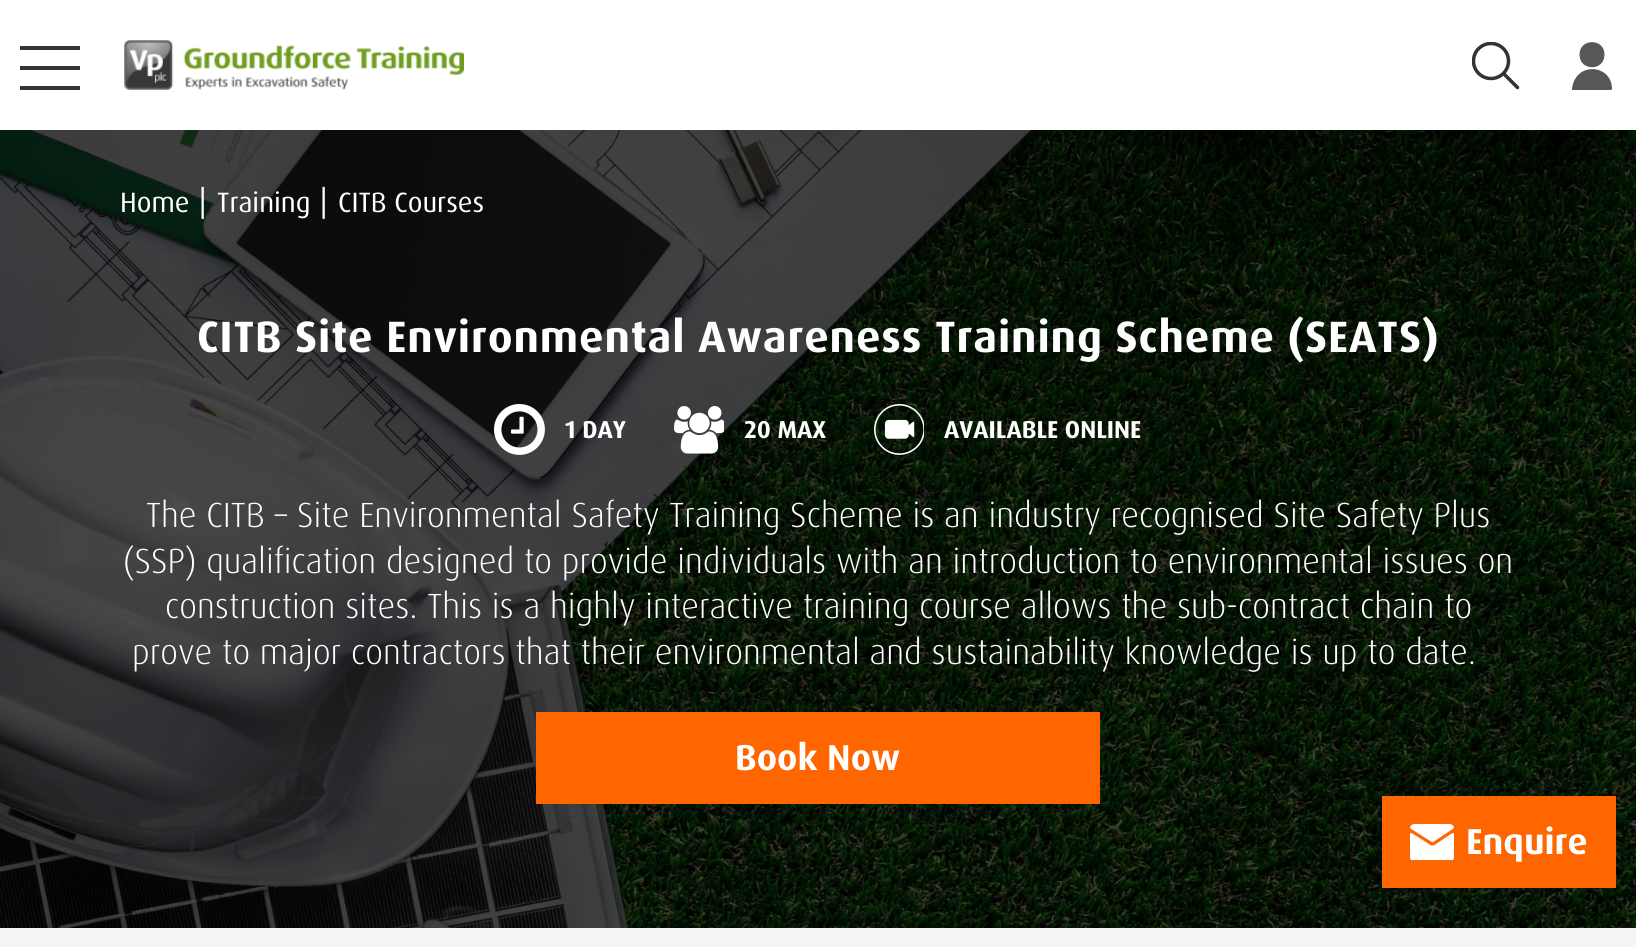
#include <cairo/cairo.h>
#include <math.h>
#include <stddef.h>


static void draw_spaced(cairo_t *cr, double x, double y, const char *s, double letter, double word) {
  cairo_move_to(cr, x, y);
  while (*s) {
    char ch[5] = {0};
    int n = 0;
    do ch[n++] = *s++; while ((*s & 0xC0) == 0x80);
    cairo_show_text(cr, ch);
    cairo_rel_move_to(cr, letter + word * (*ch == ' '), 0);
  }
}

static void draw_image(cairo_t *cr, const char *path, double x, double y, double w, double h) {
  cairo_surface_t *image = cairo_image_surface_create_from_png(path);
  cairo_save(cr);
  cairo_set_source_surface(cr, image, x, y);
  cairo_rectangle(cr, x, y, w, h);
  cairo_fill(cr);
  cairo_restore(cr);
  cairo_surface_destroy(image);
}

static void draw(cairo_t *cr) {
  cairo_set_source_rgb(cr, 1, 1, 1);
  cairo_paint(cr);
  cairo_set_source_rgb(cr, 51 / 255.0, 51 / 255.0, 51 / 255.0);
  cairo_rectangle(cr, 20, 46, 60, 4);
  cairo_fill(cr);
  cairo_rectangle(cr, 20, 66, 60, 4);
  cairo_fill(cr);
  cairo_rectangle(cr, 20, 86, 60, 4);
  cairo_fill(cr);
  draw_image(cr, "images/1.png", 124, 40, 340, 50);
  cairo_save(cr);
  cairo_rectangle(cr, 1472, 42, 48, 48);
  cairo_clip(cr);
  cairo_arc(cr, 1491, 61, 17.5, 0, 2 * M_PI);
  cairo_set_line_width(cr, 3.5);
  cairo_stroke(cr);
  cairo_restore(cr);
  cairo_new_path(cr);
  cairo_move_to(cr, 1504.5, 74.5);
  cairo_line_to(cr, 1517.5, 87.5);
  cairo_set_line_width(cr, 3.5);
  cairo_set_line_cap(cr, CAIRO_LINE_CAP_ROUND);
  cairo_stroke(cr);
  cairo_set_source_rgb(cr, 87 / 255.0, 87 / 255.0, 87 / 255.0);
  cairo_new_path(cr);
  cairo_move_to(cr, 1579.5, 54.5);
  cairo_curve_to(cr, 1579.5, 71.5, 1604.5, 71.5, 1604.5, 54.5);
  cairo_curve_to(cr, 1604.5, 38, 1579.5, 38, 1579.5, 54.5);
  cairo_close_path(cr);
  cairo_move_to(cr, 1612, 89);
  cairo_curve_to(cr, 1612, 64, 1575, 61, 1572, 89);
  cairo_line_to(cr, 1572, 90);
  cairo_line_to(cr, 1580, 90);
  cairo_line_to(cr, 1611, 90);
  cairo_close_path(cr);
  cairo_fill(cr);
  draw_image(cr, "images/2.png", 0, 130, 1636, 798);
  draw_image(cr, "images/3.png", 494, 404, 51, 51);
  draw_image(cr, "images/4.png", 674, 406, 50, 48);
  draw_image(cr, "images/5.png", 874, 404, 50, 51);
  cairo_set_source_rgb(cr, 1, 102 / 255.0, 0);
  cairo_rectangle(cr, 536, 712, 564, 92);
  cairo_fill(cr);
  cairo_set_source_rgb(cr, 245 / 255.0, 245 / 255.0, 245 / 255.0);
  cairo_rectangle(cr, 0, 928, 1636, 19);
  cairo_fill(cr);
  cairo_set_source_rgb(cr, 1, 102 / 255.0, 0);
  cairo_rectangle(cr, 1382, 796, 234, 92);
  cairo_fill(cr);
  draw_image(cr, "images/6.png", 1410, 824, 44, 36);
  cairo_select_font_face(cr, "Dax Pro", CAIRO_FONT_SLANT_NORMAL, CAIRO_FONT_WEIGHT_NORMAL);
  cairo_set_font_size(cr, 28);
  cairo_set_source_rgb(cr, 1, 1, 1);
  cairo_move_to(cr, 120, 212);
  cairo_show_text(cr, "Home");
  cairo_set_font_size(cr, 32);
  cairo_move_to(cr, 199, 212);
  cairo_show_text(cr, "|");
  cairo_set_font_size(cr, 28);
  cairo_move_to(cr, 217, 212);
  cairo_show_text(cr, "Training");
  cairo_set_font_size(cr, 32);
  cairo_move_to(cr, 320, 212);
  cairo_show_text(cr, "|");
  cairo_set_font_size(cr, 28);
  cairo_move_to(cr, 338, 212);
  cairo_show_text(cr, "CITB Courses");
  cairo_select_font_face(cr, "Dax Pro", CAIRO_FONT_SLANT_NORMAL, CAIRO_FONT_WEIGHT_BOLD);
  cairo_set_font_size(cr, 43.95);
  draw_spaced(cr, 197, 352, "CITB Site Environmental Awareness Training Scheme (SEATS)", 0.88, 0);
  cairo_set_font_size(cr, 24.5);
  cairo_move_to(cr, 565, 438);
  cairo_show_text(cr, "1 DAY");
  cairo_move_to(cr, 744, 438);
  cairo_show_text(cr, "20 MAX");
  cairo_move_to(cr, 944, 438);
  cairo_show_text(cr, "AVAILABLE ONLINE");
  cairo_select_font_face(cr, "Dax Pro Light", CAIRO_FONT_SLANT_NORMAL, CAIRO_FONT_WEIGHT_NORMAL);
  cairo_set_font_size(cr, 34.95);
  cairo_move_to(cr, 146, 527);
  cairo_show_text(cr, "The CITB – Site Environmental Safety Training Scheme is an industry recognised Site Safety Plus");
  cairo_move_to(cr, 123, 573);
  cairo_show_text(cr, "(SSP) qualification designed to provide individuals with an introduction to environmental issues on");
  cairo_move_to(cr, 165, 618);
  cairo_show_text(cr, "construction sites. This is a highly interactive training course allows the sub-contract chain to");
  cairo_move_to(cr, 132, 664);
  cairo_show_text(cr, "prove to major contractors that their environmental and sustainability knowledge is up to date.");
  cairo_select_font_face(cr, "Dax Pro", CAIRO_FONT_SLANT_NORMAL, CAIRO_FONT_WEIGHT_BOLD);
  cairo_set_font_size(cr, 36);
  cairo_move_to(cr, 735, 770);
  cairo_show_text(cr, "Book Now");
  cairo_move_to(cr, 1466, 854);
  cairo_show_text(cr, "Enquire");
}

int main(void) {
  cairo_surface_t *surface = cairo_image_surface_create(CAIRO_FORMAT_RGB24, 1636, 947);
  cairo_t *cr = cairo_create(surface);
  cairo_font_options_t *options = cairo_font_options_create();
  cairo_font_options_set_hint_metrics(options, CAIRO_HINT_METRICS_OFF);
  cairo_font_options_set_hint_style(options, CAIRO_HINT_STYLE_NONE);
  cairo_set_font_options(cr, options);
  cairo_set_miter_limit(cr, 4);
  draw(cr);
  cairo_surface_write_to_png(surface, "out.png");
  cairo_font_options_destroy(options);
  cairo_destroy(cr);
  cairo_surface_destroy(surface);
  return 0;
}
